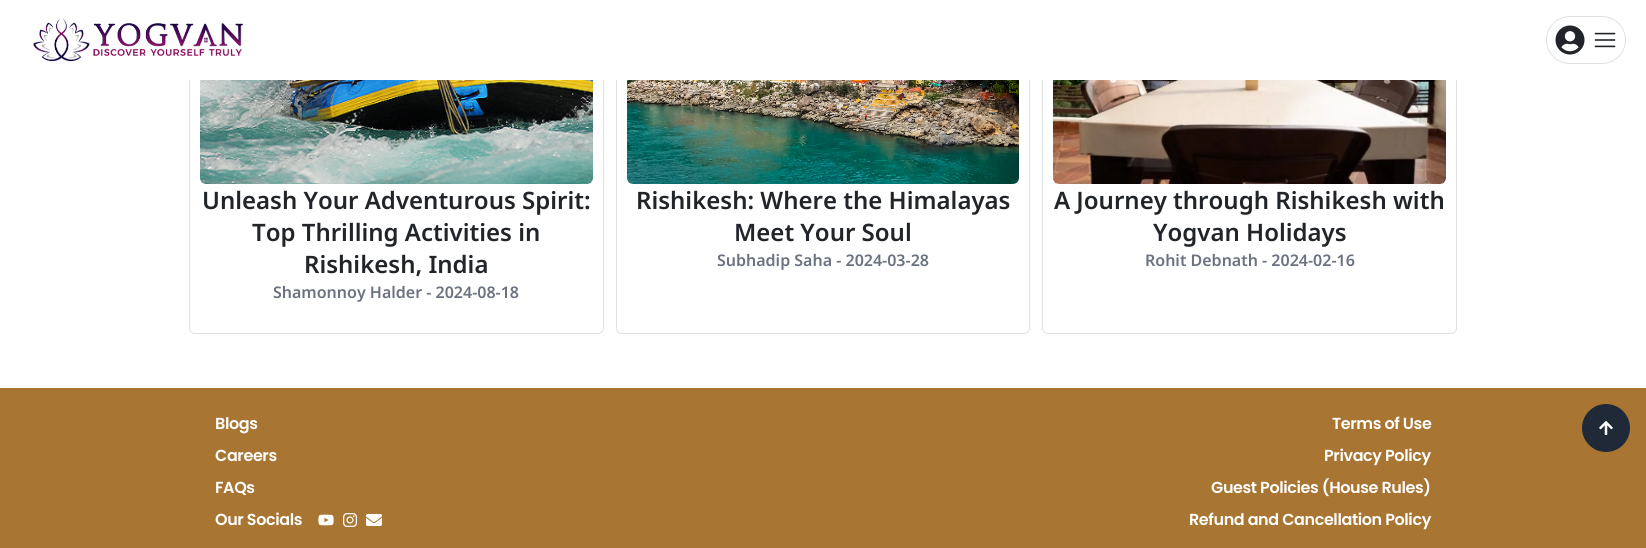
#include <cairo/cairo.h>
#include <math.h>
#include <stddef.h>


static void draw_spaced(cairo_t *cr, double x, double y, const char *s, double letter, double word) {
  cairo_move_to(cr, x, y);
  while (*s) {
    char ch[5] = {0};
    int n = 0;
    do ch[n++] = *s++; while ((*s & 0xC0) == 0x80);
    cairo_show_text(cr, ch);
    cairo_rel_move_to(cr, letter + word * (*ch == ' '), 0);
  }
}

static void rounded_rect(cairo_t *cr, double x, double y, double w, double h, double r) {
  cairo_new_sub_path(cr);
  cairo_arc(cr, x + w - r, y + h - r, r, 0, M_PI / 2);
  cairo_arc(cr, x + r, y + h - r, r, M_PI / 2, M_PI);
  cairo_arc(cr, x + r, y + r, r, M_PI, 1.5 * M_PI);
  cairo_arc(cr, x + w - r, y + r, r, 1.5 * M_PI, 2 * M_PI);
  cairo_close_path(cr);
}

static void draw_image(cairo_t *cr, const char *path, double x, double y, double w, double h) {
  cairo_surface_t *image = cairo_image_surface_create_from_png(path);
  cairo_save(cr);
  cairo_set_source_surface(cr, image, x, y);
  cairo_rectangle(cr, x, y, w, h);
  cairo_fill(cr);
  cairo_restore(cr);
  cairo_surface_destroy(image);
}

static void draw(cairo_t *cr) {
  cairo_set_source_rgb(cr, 1, 1, 1);
  cairo_paint(cr);
  rounded_rect(cr, 189.5, -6.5, 414, 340, 5.5);
  cairo_set_source_rgb(cr, 222 / 255.0, 226 / 255.0, 230 / 255.0);
  cairo_set_line_width(cr, 1);
  cairo_stroke(cr);
  rounded_rect(cr, 616.5, -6.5, 413, 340, 5.5);
  cairo_stroke(cr);
  rounded_rect(cr, 1042.5, -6.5, 414, 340, 5.5);
  cairo_stroke(cr);
  cairo_set_source_rgb(cr, 1, 1, 1);
  cairo_rectangle(cr, 189, 0, 1268, 80);
  cairo_fill(cr);
  draw_image(cr, "images/1.png", 33, 18, 210, 44);
  rounded_rect(cr, 1546.5, 16.5, 79, 47, 23.5);
  cairo_set_source_rgb(cr, 222 / 255.0, 226 / 255.0, 230 / 255.0);
  cairo_stroke(cr);
  draw_image(cr, "images/2.png", 1555, 25, 30, 30);
  draw_image(cr, "images/3.png", 1594, 32, 22, 16);
  draw_image(cr, "images/4.png", 200, 80, 393, 104);
  draw_image(cr, "images/5.png", 627, 80, 392, 104);
  draw_image(cr, "images/6.png", 1053, 80, 393, 104);
  cairo_set_source_rgb(cr, 168 / 255.0, 117 / 255.0, 50 / 255.0);
  cairo_rectangle(cr, 0, 388, 1646, 160);
  cairo_fill(cr);
  draw_image(cr, "images/7.png", 318, 514, 16, 12);
  draw_image(cr, "images/8.png", 343, 513, 14, 14);
  draw_image(cr, "images/9.png", 366, 514, 16, 12);
  cairo_set_source_rgb(cr, 31 / 255.0, 41 / 255.0, 55 / 255.0);
  cairo_arc(cr, 1606, 428, 24, 0, 2 * M_PI);
  cairo_fill(cr);
  draw_image(cr, "images/10.png", 1599, 421, 14, 14);
  cairo_select_font_face(cr, "Noto Sans SemiBold", CAIRO_FONT_SLANT_NORMAL, CAIRO_FONT_WEIGHT_NORMAL);
  cairo_set_font_size(cr, 24);
  cairo_set_source_rgb(cr, 33 / 255.0, 37 / 255.0, 41 / 255.0);
  cairo_move_to(cr, 202, 209);
  cairo_show_text(cr, "Unleash Your Adventurous Spirit:");
  cairo_move_to(cr, 252, 241);
  cairo_show_text(cr, "Top Thrilling Activities in");
  cairo_move_to(cr, 304, 273);
  cairo_show_text(cr, "Rishikesh, India");
  cairo_set_font_size(cr, 16);
  cairo_set_source_rgb(cr, 107 / 255.0, 114 / 255.0, 128 / 255.0);
  cairo_move_to(cr, 273, 298);
  cairo_show_text(cr, "Shamonnoy Halder - 2024-08-18");
  cairo_set_font_size(cr, 24);
  cairo_set_source_rgb(cr, 33 / 255.0, 37 / 255.0, 41 / 255.0);
  cairo_move_to(cr, 636, 209);
  cairo_show_text(cr, "Rishikesh: Where the Himalayas");
  cairo_move_to(cr, 734, 241);
  cairo_show_text(cr, "Meet Your Soul");
  cairo_set_font_size(cr, 16);
  cairo_set_source_rgb(cr, 107 / 255.0, 114 / 255.0, 128 / 255.0);
  cairo_move_to(cr, 717, 266);
  cairo_show_text(cr, "Subhadip Saha - 2024-03-28");
  cairo_set_font_size(cr, 24);
  cairo_set_source_rgb(cr, 33 / 255.0, 37 / 255.0, 41 / 255.0);
  cairo_move_to(cr, 1054, 209);
  cairo_show_text(cr, "A Journey through Rishikesh with");
  cairo_move_to(cr, 1153, 241);
  cairo_show_text(cr, "Yogvan Holidays");
  cairo_set_font_size(cr, 16);
  cairo_set_source_rgb(cr, 107 / 255.0, 114 / 255.0, 128 / 255.0);
  cairo_move_to(cr, 1145, 266);
  cairo_show_text(cr, "Rohit Debnath - 2024-02-16");
  cairo_select_font_face(cr, "Poppins SemiBold", CAIRO_FONT_SLANT_NORMAL, CAIRO_FONT_WEIGHT_NORMAL);
  cairo_set_source_rgb(cr, 1, 1, 1);
  draw_spaced(cr, 215, 429, "Blogs", -0.4, 0);
  draw_spaced(cr, 215, 461, "Careers", -0.4, 0);
  draw_spaced(cr, 215, 493, "FAQs", -0.4, 0);
  draw_spaced(cr, 215, 525, "Our Socials", -0.4, 0);
  draw_spaced(cr, 1332, 429, "Terms of Use", -0.4, 0);
  draw_spaced(cr, 1324, 461, "Privacy Policy", -0.4, 0);
  draw_spaced(cr, 1211, 493, "Guest Policies (House Rules)", -0.4, 0);
  draw_spaced(cr, 1189, 525, "Refund and Cancellation Policy", -0.4, 0);
}

int main(void) {
  cairo_surface_t *surface = cairo_image_surface_create(CAIRO_FORMAT_RGB24, 1646, 548);
  cairo_t *cr = cairo_create(surface);
  cairo_font_options_t *options = cairo_font_options_create();
  cairo_font_options_set_hint_metrics(options, CAIRO_HINT_METRICS_OFF);
  cairo_font_options_set_hint_style(options, CAIRO_HINT_STYLE_NONE);
  cairo_set_font_options(cr, options);
  cairo_set_miter_limit(cr, 4);
  draw(cr);
  cairo_surface_write_to_png(surface, "out.png");
  cairo_font_options_destroy(options);
  cairo_destroy(cr);
  cairo_surface_destroy(surface);
  return 0;
}
